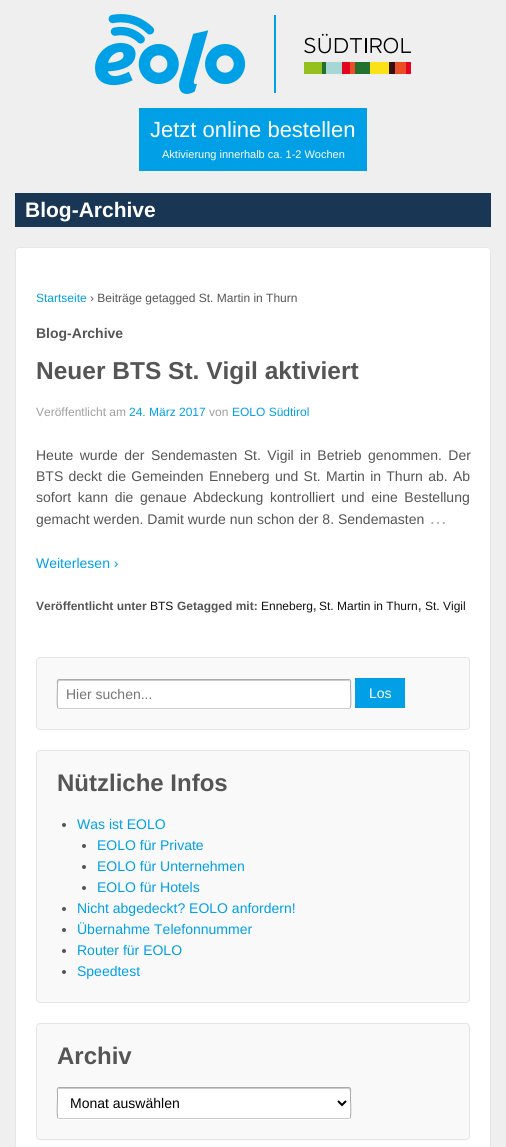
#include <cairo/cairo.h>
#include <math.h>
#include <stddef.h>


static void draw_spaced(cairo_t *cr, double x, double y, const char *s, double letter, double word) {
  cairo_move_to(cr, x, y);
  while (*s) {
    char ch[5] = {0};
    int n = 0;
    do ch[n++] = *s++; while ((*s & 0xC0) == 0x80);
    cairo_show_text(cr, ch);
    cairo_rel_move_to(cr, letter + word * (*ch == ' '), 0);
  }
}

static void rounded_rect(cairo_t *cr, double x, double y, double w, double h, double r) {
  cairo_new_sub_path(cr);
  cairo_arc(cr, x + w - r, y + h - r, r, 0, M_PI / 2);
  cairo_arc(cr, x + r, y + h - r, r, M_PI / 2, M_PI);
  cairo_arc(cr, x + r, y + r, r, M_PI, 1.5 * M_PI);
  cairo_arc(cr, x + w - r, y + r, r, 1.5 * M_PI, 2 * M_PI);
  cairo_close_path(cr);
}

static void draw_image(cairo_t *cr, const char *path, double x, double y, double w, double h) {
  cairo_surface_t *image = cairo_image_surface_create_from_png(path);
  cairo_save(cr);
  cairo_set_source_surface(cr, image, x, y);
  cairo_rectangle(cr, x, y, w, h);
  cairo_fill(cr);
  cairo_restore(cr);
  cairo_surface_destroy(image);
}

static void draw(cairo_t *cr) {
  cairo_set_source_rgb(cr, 239 / 255.0, 239 / 255.0, 239 / 255.0);
  cairo_paint(cr);
  draw_image(cr, "images/1.png", 95, 14, 316, 80);
  cairo_set_source_rgb(cr, 1 / 255.0, 160 / 255.0, 230 / 255.0);
  cairo_rectangle(cr, 139, 108, 228, 63);
  cairo_fill(cr);
  cairo_set_source_rgb(cr, 25 / 255.0, 55 / 255.0, 85 / 255.0);
  cairo_rectangle(cr, 15, 193, 476, 34);
  cairo_fill(cr);
  cairo_set_source_rgb(cr, 1, 1, 1);
  rounded_rect(cr, 15.5, 247.5, 475, 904, 3.5);
  cairo_fill_preserve(cr);
  cairo_set_source_rgb(cr, 229 / 255.0, 229 / 255.0, 229 / 255.0);
  cairo_set_line_width(cr, 1);
  cairo_stroke(cr);
  cairo_set_source_rgb(cr, 249 / 255.0, 249 / 255.0, 249 / 255.0);
  rounded_rect(cr, 36.5, 657.5, 433, 72, 3.5);
  cairo_fill_preserve(cr);
  cairo_set_source_rgb(cr, 229 / 255.0, 229 / 255.0, 229 / 255.0);
  cairo_stroke(cr);
  cairo_set_source_rgb(cr, 1, 1, 1);
  cairo_new_path(cr);
  cairo_move_to(cr, 57, 707);
  cairo_curve_to(cr, 57, 708, 57, 710, 59, 710);
  cairo_line_to(cr, 350, 710);
  cairo_line_to(cr, 351, 707);
  cairo_curve_to(cr, 351, 708, 350, 709, 349, 709);
  cairo_line_to(cr, 59, 709);
  cairo_curve_to(cr, 58, 709, 57, 708, 57, 707);
  cairo_close_path(cr);
  cairo_fill(cr);
  rounded_rect(cr, 57, 679, 294, 30, 2);
  cairo_fill(cr);
  cairo_set_source_rgb(cr, 204 / 255.0, 204 / 255.0, 204 / 255.0);
  cairo_new_path(cr);
  cairo_move_to(cr, 59, 681);
  cairo_line_to(cr, 349, 681);
  cairo_line_to(cr, 350, 682);
  cairo_line_to(cr, 349, 680);
  cairo_line_to(cr, 59, 680);
  cairo_curve_to(cr, 57, 680, 58, 683, 58, 684);
  cairo_close_path(cr);
  cairo_fill(cr);
  cairo_new_path(cr);
  cairo_move_to(cr, 350, 708);
  cairo_line_to(cr, 349, 708.5);
  cairo_line_to(cr, 59, 708.5);
  cairo_line_to(cr, 58, 708);
  cairo_stroke(cr);
  cairo_new_path(cr);
  cairo_move_to(cr, 58, 708);
  cairo_curve_to(cr, 56.5, 707, 57.5, 688.5, 57.5, 685.5);
  cairo_curve_to(cr, 57.5, 685, 56.5, 679.5, 59, 679.5);
  cairo_line_to(cr, 349, 679.5);
  cairo_curve_to(cr, 351.5, 679.5, 350.5, 685, 350.5, 685.5);
  cairo_curve_to(cr, 350.5, 688.5, 351.5, 707, 350, 708);
  cairo_set_source_rgb(cr, 170 / 255.0, 170 / 255.0, 170 / 255.0);
  cairo_stroke(cr);
  cairo_set_source_rgb(cr, 1 / 255.0, 160 / 255.0, 230 / 255.0);
  cairo_rectangle(cr, 355, 678, 50, 30);
  cairo_fill(cr);
  cairo_set_source_rgb(cr, 249 / 255.0, 249 / 255.0, 249 / 255.0);
  rounded_rect(cr, 36.5, 750.5, 433, 252, 3.5);
  cairo_fill_preserve(cr);
  cairo_set_source_rgb(cr, 229 / 255.0, 229 / 255.0, 229 / 255.0);
  cairo_stroke(cr);
  cairo_set_source_rgb(cr, 85 / 255.0, 85 / 255.0, 85 / 255.0);
  cairo_arc(cr, 64, 825, 2, 0, 2 * M_PI);
  cairo_fill(cr);
  cairo_arc(cr, 84, 846, 2, 0, 2 * M_PI);
  cairo_fill(cr);
  cairo_arc(cr, 84, 867, 2, 0, 2 * M_PI);
  cairo_fill(cr);
  cairo_arc(cr, 84, 888, 2, 0, 2 * M_PI);
  cairo_fill(cr);
  cairo_arc(cr, 64, 909, 2, 0, 2 * M_PI);
  cairo_fill(cr);
  cairo_arc(cr, 64, 930, 2, 0, 2 * M_PI);
  cairo_fill(cr);
  cairo_arc(cr, 64, 951, 2, 0, 2 * M_PI);
  cairo_fill(cr);
  cairo_arc(cr, 64, 972, 2, 0, 2 * M_PI);
  cairo_fill(cr);
  cairo_set_source_rgb(cr, 249 / 255.0, 249 / 255.0, 249 / 255.0);
  rounded_rect(cr, 36.5, 1023.5, 433, 116, 3.5);
  cairo_fill_preserve(cr);
  cairo_set_source_rgb(cr, 229 / 255.0, 229 / 255.0, 229 / 255.0);
  cairo_stroke(cr);
  cairo_set_source_rgb(cr, 1, 1, 1);
  cairo_new_path(cr);
  cairo_move_to(cr, 57, 1117);
  cairo_curve_to(cr, 57, 1118, 57, 1120, 59, 1120);
  cairo_line_to(cr, 350, 1120);
  cairo_line_to(cr, 351, 1117);
  cairo_curve_to(cr, 351, 1118, 350, 1119, 349, 1119);
  cairo_line_to(cr, 59, 1119);
  cairo_curve_to(cr, 58, 1119, 57, 1118, 57, 1117);
  cairo_close_path(cr);
  cairo_fill(cr);
  rounded_rect(cr, 57, 1087, 294, 32, 2);
  cairo_fill(cr);
  cairo_set_source_rgb(cr, 204 / 255.0, 204 / 255.0, 204 / 255.0);
  cairo_new_path(cr);
  cairo_move_to(cr, 59, 1088);
  cairo_line_to(cr, 58, 1089);
  cairo_line_to(cr, 349, 1089);
  cairo_line_to(cr, 350, 1092);
  cairo_curve_to(cr, 350, 1091, 351, 1088, 349, 1088);
  cairo_close_path(cr);
  cairo_fill(cr);
  cairo_new_path(cr);
  cairo_move_to(cr, 350, 1118);
  cairo_line_to(cr, 349, 1118.5);
  cairo_line_to(cr, 59, 1118.5);
  cairo_line_to(cr, 58, 1118);
  cairo_stroke(cr);
  cairo_new_path(cr);
  cairo_move_to(cr, 58, 1118);
  cairo_curve_to(cr, 56.5, 1117, 57.5, 1101, 57.5, 1098.5);
  cairo_line_to(cr, 57.5, 1093.5);
  cairo_curve_to(cr, 57.5, 1093.5, 56.5, 1087.5, 59, 1087.5);
  cairo_line_to(cr, 349, 1087.5);
  cairo_curve_to(cr, 351.5, 1087.5, 350.5, 1093.5, 350.5, 1093.5);
  cairo_line_to(cr, 350.5, 1098.5);
  cairo_curve_to(cr, 350.5, 1101, 351.5, 1117, 350, 1118);
  cairo_set_source_rgb(cr, 170 / 255.0, 170 / 255.0, 170 / 255.0);
  cairo_stroke(cr);
  cairo_new_path(cr);
  cairo_move_to(cr, 338, 1101);
  cairo_line_to(cr, 342, 1105);
  cairo_line_to(cr, 346, 1101);
  cairo_set_source_rgb(cr, 0, 0, 0);
  cairo_set_line_width(cr, 2);
  cairo_stroke(cr);
  cairo_select_font_face(cr, "Liberation Sans", CAIRO_FONT_SLANT_NORMAL, CAIRO_FONT_WEIGHT_NORMAL);
  cairo_set_font_size(cr, 22);
  cairo_set_source_rgb(cr, 1, 1, 1);
  cairo_move_to(cr, 150, 137);
  cairo_show_text(cr, "Jetzt online bestellen");
  cairo_set_font_size(cr, 11);
  cairo_move_to(cr, 162, 158);
  cairo_show_text(cr, "Aktivierung innerhalb ca. 1-2 Wochen");
  cairo_select_font_face(cr, "Liberation Sans", CAIRO_FONT_SLANT_NORMAL, CAIRO_FONT_WEIGHT_BOLD);
  cairo_set_font_size(cr, 21);
  cairo_move_to(cr, 25, 217);
  cairo_show_text(cr, "Blog-Archive");
  cairo_select_font_face(cr, "Liberation Sans", CAIRO_FONT_SLANT_NORMAL, CAIRO_FONT_WEIGHT_NORMAL);
  cairo_set_font_size(cr, 12);
  cairo_set_source_rgb(cr, 0, 160 / 255.0, 230 / 255.0);
  cairo_move_to(cr, 36, 302);
  cairo_show_text(cr, "Startseite");
  cairo_set_source_rgb(cr, 85 / 255.0, 85 / 255.0, 85 / 255.0);
  cairo_move_to(cr, 90, 302);
  cairo_show_text(cr, "› Beiträge getagged St. Martin in Thurn");
  cairo_select_font_face(cr, "Liberation Sans", CAIRO_FONT_SLANT_NORMAL, CAIRO_FONT_WEIGHT_BOLD);
  cairo_set_font_size(cr, 14);
  cairo_move_to(cr, 36, 338);
  cairo_show_text(cr, "Blog-Archive");
  cairo_set_font_size(cr, 24.5);
  cairo_move_to(cr, 36, 379);
  cairo_show_text(cr, "Neuer BTS St. Vigil aktiviert");
  cairo_select_font_face(cr, "Liberation Sans", CAIRO_FONT_SLANT_NORMAL, CAIRO_FONT_WEIGHT_NORMAL);
  cairo_set_font_size(cr, 12);
  cairo_set_source_rgb(cr, 159 / 255.0, 159 / 255.0, 159 / 255.0);
  cairo_move_to(cr, 36, 416);
  cairo_show_text(cr, "Veröffentlicht am");
  cairo_set_source_rgb(cr, 0, 160 / 255.0, 230 / 255.0);
  cairo_move_to(cr, 129, 416);
  cairo_show_text(cr, "24. März 2017");
  cairo_set_source_rgb(cr, 159 / 255.0, 159 / 255.0, 159 / 255.0);
  cairo_move_to(cr, 209, 416);
  cairo_show_text(cr, "von");
  cairo_set_source_rgb(cr, 0, 160 / 255.0, 230 / 255.0);
  cairo_move_to(cr, 232, 416);
  cairo_show_text(cr, "EOLO Südtirol");
  cairo_set_font_size(cr, 14);
  cairo_set_source_rgb(cr, 85 / 255.0, 85 / 255.0, 85 / 255.0);
  draw_spaced(cr, 36, 460, "Heute wurde der Sendemasten St. Vigil in Betrieb genommen. Der", 0, 2.5);
  draw_spaced(cr, 36, 481, "BTS deckt die Gemeinden Enneberg und St. Martin in Thurn ab. Ab", 0, 1.4);
  draw_spaced(cr, 36, 502, "sofort kann die genaue Abdeckung kontrolliert und eine Bestellung", 0, 2.75);
  cairo_move_to(cr, 36, 524);
  cairo_show_text(cr, "gemacht werden. Damit wurde nun schon der 8. Sendemasten");
  cairo_set_font_size(cr, 18);
  cairo_set_source_rgb(cr, 170 / 255.0, 170 / 255.0, 170 / 255.0);
  cairo_move_to(cr, 429, 524);
  cairo_show_text(cr, "…");
  cairo_set_font_size(cr, 14);
  cairo_set_source_rgb(cr, 0, 160 / 255.0, 230 / 255.0);
  cairo_move_to(cr, 36, 568);
  cairo_show_text(cr, "Weiterlesen ›");
  cairo_select_font_face(cr, "Liberation Sans", CAIRO_FONT_SLANT_NORMAL, CAIRO_FONT_WEIGHT_BOLD);
  cairo_set_font_size(cr, 12);
  cairo_set_source_rgb(cr, 85 / 255.0, 85 / 255.0, 85 / 255.0);
  cairo_move_to(cr, 36, 610);
  cairo_show_text(cr, "Veröffentlicht unter");
  cairo_select_font_face(cr, "Liberation Sans", CAIRO_FONT_SLANT_NORMAL, CAIRO_FONT_WEIGHT_NORMAL);
  cairo_set_source_rgb(cr, 17 / 255.0, 17 / 255.0, 17 / 255.0);
  cairo_move_to(cr, 150, 610);
  cairo_show_text(cr, "BTS");
  cairo_select_font_face(cr, "Liberation Sans", CAIRO_FONT_SLANT_NORMAL, CAIRO_FONT_WEIGHT_BOLD);
  cairo_set_source_rgb(cr, 85 / 255.0, 85 / 255.0, 85 / 255.0);
  cairo_move_to(cr, 177, 610);
  cairo_show_text(cr, "Getagged mit:");
  cairo_select_font_face(cr, "Liberation Sans", CAIRO_FONT_SLANT_NORMAL, CAIRO_FONT_WEIGHT_NORMAL);
  cairo_set_source_rgb(cr, 17 / 255.0, 17 / 255.0, 17 / 255.0);
  cairo_move_to(cr, 261, 610);
  cairo_show_text(cr, "Enneberg");
  cairo_select_font_face(cr, "Liberation Sans", CAIRO_FONT_SLANT_NORMAL, CAIRO_FONT_WEIGHT_BOLD);
  cairo_set_source_rgb(cr, 85 / 255.0, 85 / 255.0, 85 / 255.0);
  cairo_move_to(cr, 313, 610);
  cairo_show_text(cr, ",");
  cairo_select_font_face(cr, "Liberation Sans", CAIRO_FONT_SLANT_NORMAL, CAIRO_FONT_WEIGHT_NORMAL);
  cairo_set_source_rgb(cr, 17 / 255.0, 17 / 255.0, 17 / 255.0);
  cairo_move_to(cr, 319, 610);
  cairo_show_text(cr, "St. Martin in Thurn");
  cairo_select_font_face(cr, "Liberation Sans", CAIRO_FONT_SLANT_NORMAL, CAIRO_FONT_WEIGHT_BOLD);
  cairo_set_source_rgb(cr, 85 / 255.0, 85 / 255.0, 85 / 255.0);
  cairo_move_to(cr, 418, 610);
  cairo_show_text(cr, ",");
  cairo_select_font_face(cr, "Liberation Sans", CAIRO_FONT_SLANT_NORMAL, CAIRO_FONT_WEIGHT_NORMAL);
  cairo_set_source_rgb(cr, 17 / 255.0, 17 / 255.0, 17 / 255.0);
  cairo_move_to(cr, 425, 610);
  cairo_show_text(cr, "St. Vigil");
  cairo_set_font_size(cr, 14);
  cairo_set_source_rgb(cr, 117 / 255.0, 117 / 255.0, 117 / 255.0);
  cairo_move_to(cr, 66, 699);
  cairo_show_text(cr, "Hier suchen...");
  cairo_set_source_rgb(cr, 1, 1, 1);
  cairo_move_to(cr, 369, 698);
  cairo_show_text(cr, "Los");
  cairo_select_font_face(cr, "Liberation Sans", CAIRO_FONT_SLANT_NORMAL, CAIRO_FONT_WEIGHT_BOLD);
  cairo_set_font_size(cr, 24);
  cairo_set_source_rgb(cr, 85 / 255.0, 85 / 255.0, 85 / 255.0);
  cairo_move_to(cr, 57, 791);
  cairo_show_text(cr, "Nützliche Infos");
  cairo_select_font_face(cr, "Liberation Sans", CAIRO_FONT_SLANT_NORMAL, CAIRO_FONT_WEIGHT_NORMAL);
  cairo_set_font_size(cr, 14);
  cairo_set_source_rgb(cr, 0, 160 / 255.0, 230 / 255.0);
  cairo_move_to(cr, 77, 829);
  cairo_show_text(cr, "Was ist EOLO");
  cairo_move_to(cr, 97, 850);
  cairo_show_text(cr, "EOLO für Private");
  cairo_move_to(cr, 97, 871);
  cairo_show_text(cr, "EOLO für Unternehmen");
  cairo_move_to(cr, 97, 892);
  cairo_show_text(cr, "EOLO für Hotels");
  cairo_move_to(cr, 77, 913);
  cairo_show_text(cr, "Nicht abgedeckt? EOLO anfordern!");
  cairo_move_to(cr, 77, 934);
  cairo_show_text(cr, "Übernahme Telefonnummer");
  cairo_move_to(cr, 77, 955);
  cairo_show_text(cr, "Router für EOLO");
  cairo_move_to(cr, 77, 976);
  cairo_show_text(cr, "Speedtest");
  cairo_select_font_face(cr, "Liberation Sans", CAIRO_FONT_SLANT_NORMAL, CAIRO_FONT_WEIGHT_BOLD);
  cairo_set_font_size(cr, 24);
  cairo_set_source_rgb(cr, 85 / 255.0, 85 / 255.0, 85 / 255.0);
  cairo_move_to(cr, 57, 1064);
  cairo_show_text(cr, "Archiv");
  cairo_select_font_face(cr, "Liberation Sans", CAIRO_FONT_SLANT_NORMAL, CAIRO_FONT_WEIGHT_NORMAL);
  cairo_set_font_size(cr, 14);
  cairo_set_source_rgb(cr, 0, 0, 0);
  cairo_move_to(cr, 70, 1108);
  cairo_show_text(cr, "Monat auswählen");
}

int main(void) {
  cairo_surface_t *surface = cairo_image_surface_create(CAIRO_FORMAT_RGB24, 506, 1147);
  cairo_t *cr = cairo_create(surface);
  cairo_font_options_t *options = cairo_font_options_create();
  cairo_font_options_set_hint_metrics(options, CAIRO_HINT_METRICS_OFF);
  cairo_font_options_set_hint_style(options, CAIRO_HINT_STYLE_NONE);
  cairo_set_font_options(cr, options);
  cairo_set_miter_limit(cr, 4);
  draw(cr);
  cairo_surface_write_to_png(surface, "out.png");
  cairo_font_options_destroy(options);
  cairo_destroy(cr);
  cairo_surface_destroy(surface);
  return 0;
}
